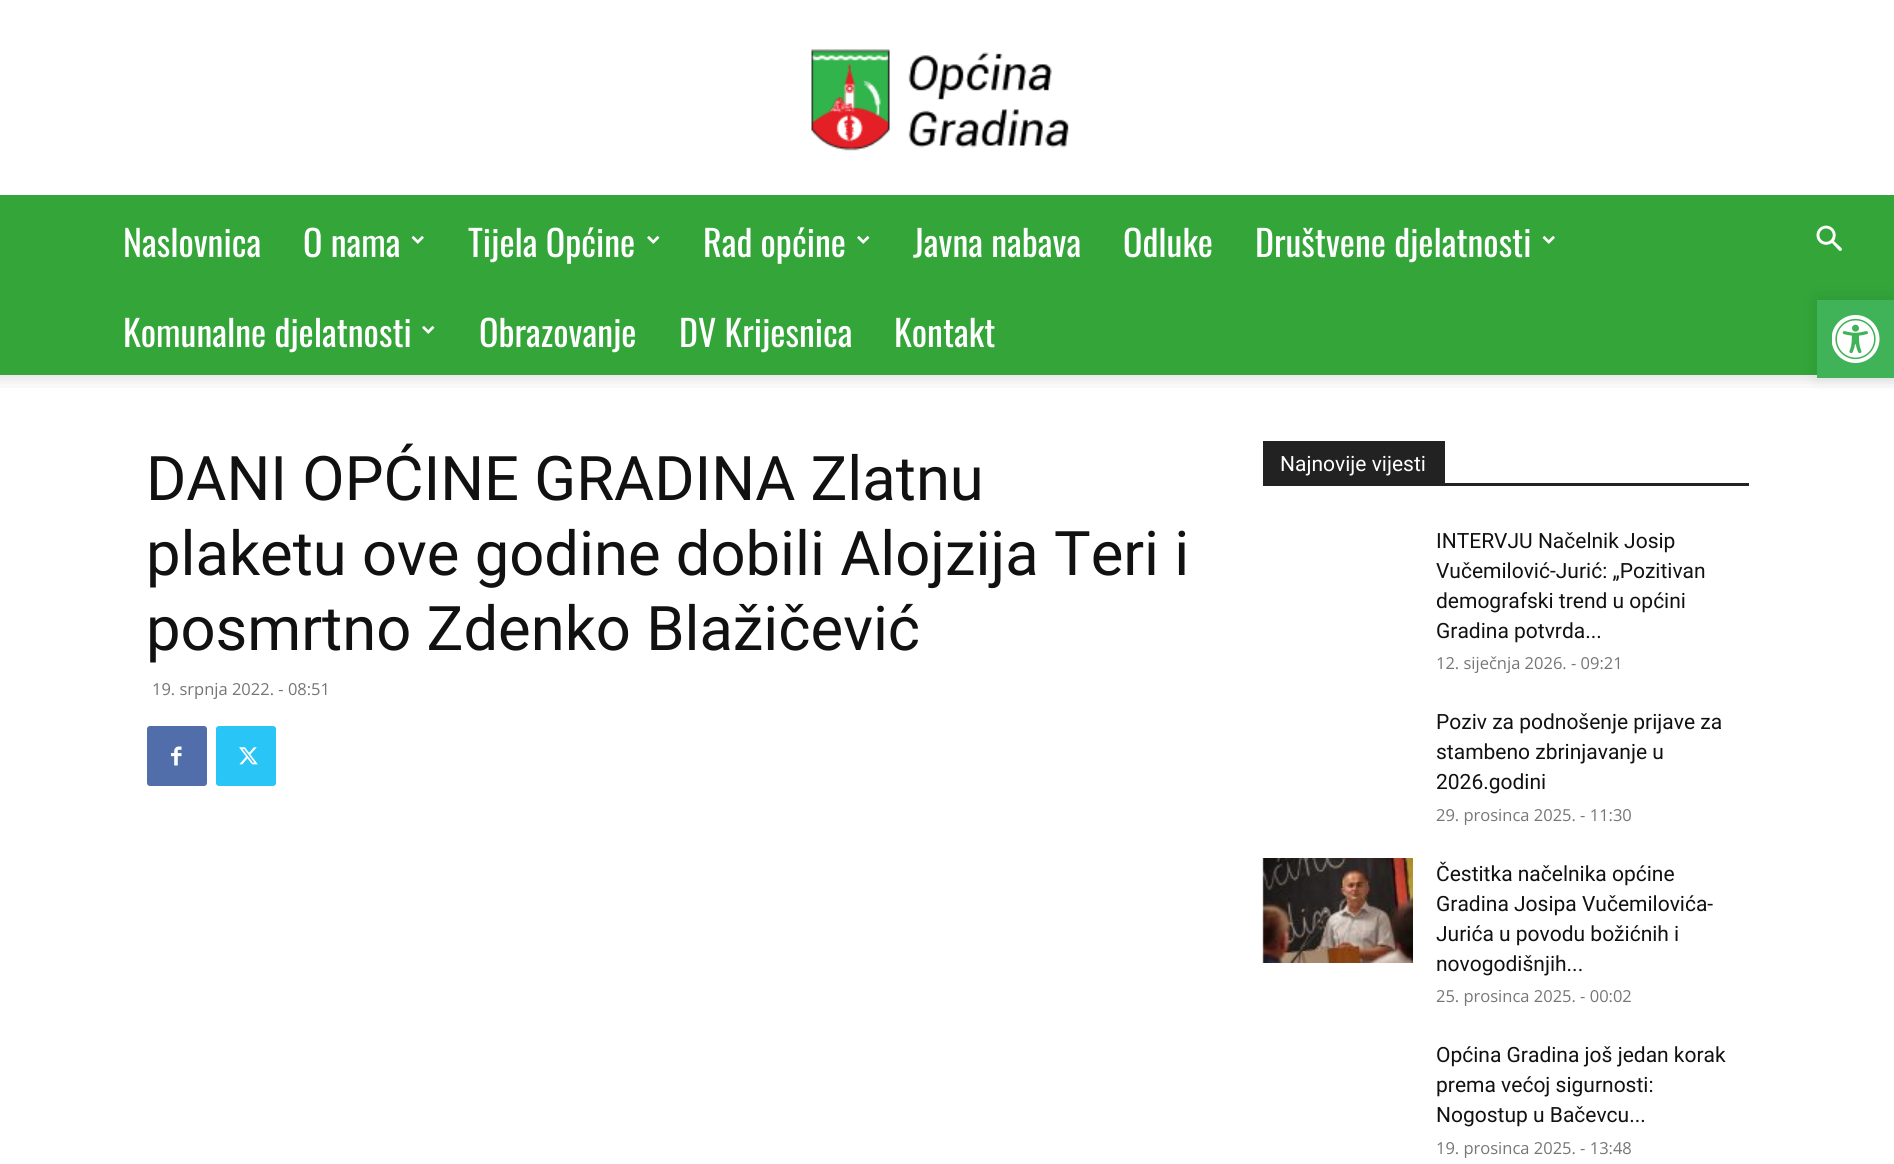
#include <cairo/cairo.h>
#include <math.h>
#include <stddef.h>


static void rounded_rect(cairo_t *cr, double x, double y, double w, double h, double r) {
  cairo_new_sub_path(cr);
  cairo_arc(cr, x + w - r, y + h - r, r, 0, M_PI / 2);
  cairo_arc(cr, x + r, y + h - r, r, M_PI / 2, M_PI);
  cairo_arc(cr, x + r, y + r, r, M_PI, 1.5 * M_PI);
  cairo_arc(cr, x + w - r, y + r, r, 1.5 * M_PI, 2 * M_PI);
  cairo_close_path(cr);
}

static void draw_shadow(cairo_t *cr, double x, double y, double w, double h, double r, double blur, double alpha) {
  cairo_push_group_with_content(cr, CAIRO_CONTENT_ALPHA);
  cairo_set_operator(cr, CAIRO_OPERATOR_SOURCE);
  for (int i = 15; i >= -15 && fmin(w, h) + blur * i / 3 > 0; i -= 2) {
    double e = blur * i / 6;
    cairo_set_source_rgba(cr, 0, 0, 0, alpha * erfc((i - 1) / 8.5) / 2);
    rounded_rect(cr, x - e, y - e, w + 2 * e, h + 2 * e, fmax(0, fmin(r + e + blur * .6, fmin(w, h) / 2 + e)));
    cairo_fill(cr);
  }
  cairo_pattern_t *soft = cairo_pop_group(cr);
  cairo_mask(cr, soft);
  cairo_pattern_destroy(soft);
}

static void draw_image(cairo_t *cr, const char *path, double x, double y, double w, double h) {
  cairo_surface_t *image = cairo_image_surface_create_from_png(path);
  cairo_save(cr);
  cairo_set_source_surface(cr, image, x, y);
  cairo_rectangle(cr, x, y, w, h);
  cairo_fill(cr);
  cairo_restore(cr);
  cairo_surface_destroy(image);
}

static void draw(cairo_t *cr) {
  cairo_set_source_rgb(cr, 1, 1, 1);
  cairo_paint(cr);
  draw_image(cr, "images/1.png", 811, 49, 258, 102);
  cairo_set_source_rgb(cr, 51 / 255.0, 165 / 255.0, 57 / 255.0);
  cairo_rectangle(cr, 0, 195, 1894, 180);
  cairo_fill(cr);
  draw_image(cr, "images/2.png", 411, 236, 13, 8);
  draw_image(cr, "images/3.png", 647, 236, 13, 8);
  draw_image(cr, "images/3.png", 857, 236, 13, 8);
  draw_image(cr, "images/2.png", 1542, 236, 13, 8);
  draw_image(cr, "images/3.png", 422, 326, 13, 8);
  draw_image(cr, "images/4.png", 1816, 225, 26, 26);
  draw_image(cr, "images/5.png", 0, 375, 1894, 13);
  cairo_set_source_rgb(cr, 81 / 255.0, 110 / 255.0, 171 / 255.0);
  rounded_rect(cr, 147, 726, 60, 60, 3);
  cairo_fill(cr);
  draw_image(cr, "images/6.png", 171, 746, 11, 20);
  cairo_set_source_rgb(cr, 41 / 255.0, 197 / 255.0, 246 / 255.0);
  rounded_rect(cr, 216, 726, 60, 60, 3);
  cairo_fill(cr);
  draw_image(cr, "images/7.png", 239, 747, 19, 18);
  cairo_set_source_rgb(cr, 34 / 255.0, 34 / 255.0, 34 / 255.0);
  cairo_rectangle(cr, 1263, 483, 486, 3);
  cairo_fill(cr);
  cairo_rectangle(cr, 1263, 441, 182, 42);
  cairo_fill(cr);
  draw_image(cr, "images/8.png", 1262, 858, 151, 105);
  cairo_set_source_rgb(cr, 0, 0, 0);
  draw_shadow(cr, 1817, 300, 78, 78, 0, 7.5, 0.1);
  cairo_set_source_rgb(cr, 64 / 255.0, 178 / 255.0, 87 / 255.0);
  cairo_rectangle(cr, 1817, 300, 77, 78);
  cairo_fill(cr);
  draw_image(cr, "images/9.png", 1832, 315, 48, 48);
  cairo_select_font_face(cr, "Oswald", CAIRO_FONT_SLANT_NORMAL, CAIRO_FONT_WEIGHT_NORMAL);
  cairo_set_font_size(cr, 36);
  cairo_set_source_rgb(cr, 1, 1, 1);
  cairo_move_to(cr, 123, 257);
  cairo_show_text(cr, "Naslovnica");
  cairo_move_to(cr, 303, 257);
  cairo_show_text(cr, "O nama");
  cairo_move_to(cr, 468, 257);
  cairo_show_text(cr, "Tijela Općine");
  cairo_move_to(cr, 703, 257);
  cairo_show_text(cr, "Rad općine");
  cairo_move_to(cr, 913, 257);
  cairo_show_text(cr, "Javna nabava");
  cairo_move_to(cr, 1123, 257);
  cairo_show_text(cr, "Odluke");
  cairo_move_to(cr, 1255, 257);
  cairo_show_text(cr, "Društvene djelatnosti");
  cairo_move_to(cr, 123, 347);
  cairo_show_text(cr, "Komunalne djelatnosti");
  cairo_move_to(cr, 479, 347);
  cairo_show_text(cr, "Obrazovanje");
  cairo_move_to(cr, 679, 347);
  cairo_show_text(cr, "DV Krijesnica");
  cairo_move_to(cr, 894, 347);
  cairo_show_text(cr, "Kontakt");
  cairo_select_font_face(cr, "Roboto", CAIRO_FONT_SLANT_NORMAL, CAIRO_FONT_WEIGHT_NORMAL);
  cairo_set_font_size(cr, 61.5);
  cairo_set_source_rgb(cr, 17 / 255.0, 17 / 255.0, 17 / 255.0);
  cairo_move_to(cr, 146, 500);
  cairo_show_text(cr, "DANI OPĆINE GRADINA Zlatnu");
  cairo_move_to(cr, 146, 575);
  cairo_show_text(cr, "plaketu ove godine dobili Alojzija Teri i");
  cairo_move_to(cr, 146, 650);
  cairo_show_text(cr, "posmrtno Zdenko Blažičević");
  cairo_select_font_face(cr, "Open Sans", CAIRO_FONT_SLANT_NORMAL, CAIRO_FONT_WEIGHT_NORMAL);
  cairo_set_font_size(cr, 16.5);
  cairo_set_source_rgb(cr, 118 / 255.0, 118 / 255.0, 118 / 255.0);
  cairo_move_to(cr, 152, 695);
  cairo_show_text(cr, "19. srpnja 2022. - 08:51");
  cairo_select_font_face(cr, "Roboto", CAIRO_FONT_SLANT_NORMAL, CAIRO_FONT_WEIGHT_NORMAL);
  cairo_set_font_size(cr, 21);
  cairo_set_source_rgb(cr, 1, 1, 1);
  cairo_move_to(cr, 1280, 471);
  cairo_show_text(cr, "Najnovije vijesti");
  cairo_set_source_rgb(cr, 17 / 255.0, 17 / 255.0, 17 / 255.0);
  cairo_move_to(cr, 1436, 548);
  cairo_show_text(cr, "INTERVJU Načelnik Josip");
  cairo_move_to(cr, 1436, 578);
  cairo_show_text(cr, "Vučemilović-Jurić: „Pozitivan");
  cairo_move_to(cr, 1436, 608);
  cairo_show_text(cr, "demografski trend u općini");
  cairo_move_to(cr, 1436, 638);
  cairo_show_text(cr, "Gradina potvrda...");
  cairo_select_font_face(cr, "Open Sans", CAIRO_FONT_SLANT_NORMAL, CAIRO_FONT_WEIGHT_NORMAL);
  cairo_set_font_size(cr, 16.5);
  cairo_set_source_rgb(cr, 118 / 255.0, 118 / 255.0, 118 / 255.0);
  cairo_move_to(cr, 1436, 669);
  cairo_show_text(cr, "12. siječnja 2026. - 09:21");
  cairo_select_font_face(cr, "Roboto", CAIRO_FONT_SLANT_NORMAL, CAIRO_FONT_WEIGHT_NORMAL);
  cairo_set_font_size(cr, 21);
  cairo_set_source_rgb(cr, 17 / 255.0, 17 / 255.0, 17 / 255.0);
  cairo_move_to(cr, 1436, 729);
  cairo_show_text(cr, "Poziv za podnošenje prijave za");
  cairo_move_to(cr, 1436, 759);
  cairo_show_text(cr, "stambeno zbrinjavanje u");
  cairo_move_to(cr, 1436, 789);
  cairo_show_text(cr, "2026.godini");
  cairo_select_font_face(cr, "Open Sans", CAIRO_FONT_SLANT_NORMAL, CAIRO_FONT_WEIGHT_NORMAL);
  cairo_set_font_size(cr, 16.5);
  cairo_set_source_rgb(cr, 118 / 255.0, 118 / 255.0, 118 / 255.0);
  cairo_move_to(cr, 1436, 821);
  cairo_show_text(cr, "29. prosinca 2025. - 11:30");
  cairo_select_font_face(cr, "Roboto", CAIRO_FONT_SLANT_NORMAL, CAIRO_FONT_WEIGHT_NORMAL);
  cairo_set_font_size(cr, 21);
  cairo_set_source_rgb(cr, 17 / 255.0, 17 / 255.0, 17 / 255.0);
  cairo_move_to(cr, 1436, 881);
  cairo_show_text(cr, "Čestitka načelnika općine");
  cairo_move_to(cr, 1436, 911);
  cairo_show_text(cr, "Gradina Josipa Vučemilovića-");
  cairo_move_to(cr, 1436, 941);
  cairo_show_text(cr, "Jurića u povodu božićnih i");
  cairo_move_to(cr, 1436, 971);
  cairo_show_text(cr, "novogodišnjih...");
  cairo_select_font_face(cr, "Open Sans", CAIRO_FONT_SLANT_NORMAL, CAIRO_FONT_WEIGHT_NORMAL);
  cairo_set_font_size(cr, 16.5);
  cairo_set_source_rgb(cr, 118 / 255.0, 118 / 255.0, 118 / 255.0);
  cairo_move_to(cr, 1436, 1002);
  cairo_show_text(cr, "25. prosinca 2025. - 00:02");
  cairo_select_font_face(cr, "Roboto", CAIRO_FONT_SLANT_NORMAL, CAIRO_FONT_WEIGHT_NORMAL);
  cairo_set_font_size(cr, 21);
  cairo_set_source_rgb(cr, 17 / 255.0, 17 / 255.0, 17 / 255.0);
  cairo_move_to(cr, 1436, 1062);
  cairo_show_text(cr, "Općina Gradina još jedan korak");
  cairo_move_to(cr, 1436, 1092);
  cairo_show_text(cr, "prema većoj sigurnosti:");
  cairo_move_to(cr, 1436, 1122);
  cairo_show_text(cr, "Nogostup u Bačevcu...");
  cairo_select_font_face(cr, "Open Sans", CAIRO_FONT_SLANT_NORMAL, CAIRO_FONT_WEIGHT_NORMAL);
  cairo_set_font_size(cr, 16.5);
  cairo_set_source_rgb(cr, 118 / 255.0, 118 / 255.0, 118 / 255.0);
  cairo_move_to(cr, 1436, 1154);
  cairo_show_text(cr, "19. prosinca 2025. - 13:48");
}

int main(void) {
  cairo_surface_t *surface = cairo_image_surface_create(CAIRO_FORMAT_RGB24, 1894, 1164);
  cairo_t *cr = cairo_create(surface);
  cairo_font_options_t *options = cairo_font_options_create();
  cairo_font_options_set_hint_metrics(options, CAIRO_HINT_METRICS_OFF);
  cairo_font_options_set_hint_style(options, CAIRO_HINT_STYLE_NONE);
  cairo_set_font_options(cr, options);
  cairo_set_miter_limit(cr, 4);
  draw(cr);
  cairo_surface_write_to_png(surface, "out.png");
  cairo_font_options_destroy(options);
  cairo_destroy(cr);
  cairo_surface_destroy(surface);
  return 0;
}
